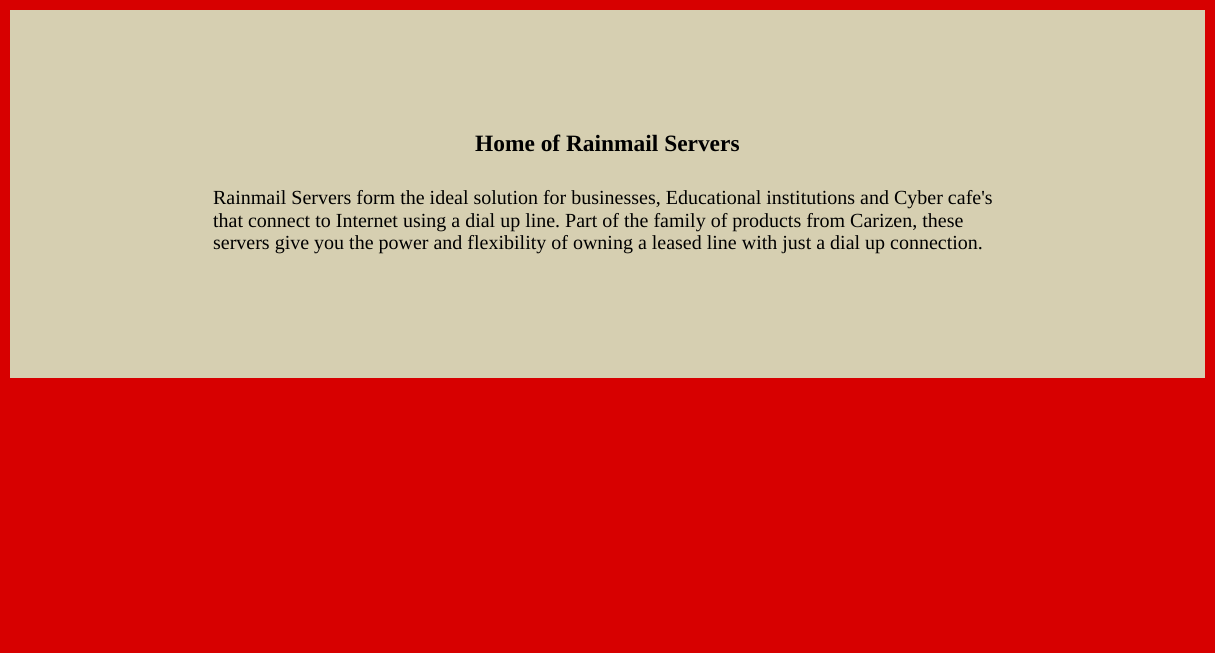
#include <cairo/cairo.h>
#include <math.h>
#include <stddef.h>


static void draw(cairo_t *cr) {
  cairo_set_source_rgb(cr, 215 / 255.0, 0, 0);
  cairo_paint(cr);
  cairo_set_source_rgb(cr, 214 / 255.0, 207 / 255.0, 177 / 255.0);
  cairo_rectangle(cr, 10, 10, 1195, 368);
  cairo_fill(cr);
  cairo_select_font_face(cr, "Liberation Serif", CAIRO_FONT_SLANT_NORMAL, CAIRO_FONT_WEIGHT_BOLD);
  cairo_set_font_size(cr, 23.4);
  cairo_set_source_rgb(cr, 0, 0, 0);
  cairo_move_to(cr, 475, 151);
  cairo_show_text(cr, "Home of Rainmail Servers");
  cairo_select_font_face(cr, "Liberation Serif", CAIRO_FONT_SLANT_NORMAL, CAIRO_FONT_WEIGHT_NORMAL);
  cairo_set_font_size(cr, 20);
  cairo_move_to(cr, 213, 204);
  cairo_show_text(cr, "Rainmail Servers form the ideal solution for businesses, Educational institutions and Cyber cafe's");
  cairo_move_to(cr, 213, 227);
  cairo_show_text(cr, "that connect to Internet using a dial up line. Part of the family of products from Carizen, these");
  cairo_move_to(cr, 213, 249);
  cairo_show_text(cr, "servers give you the power and flexibility of owning a leased line with just a dial up connection.");
}

int main(void) {
  cairo_surface_t *surface = cairo_image_surface_create(CAIRO_FORMAT_RGB24, 1215, 653);
  cairo_t *cr = cairo_create(surface);
  cairo_font_options_t *options = cairo_font_options_create();
  cairo_font_options_set_hint_metrics(options, CAIRO_HINT_METRICS_OFF);
  cairo_font_options_set_hint_style(options, CAIRO_HINT_STYLE_NONE);
  cairo_set_font_options(cr, options);
  cairo_set_miter_limit(cr, 4);
  draw(cr);
  cairo_surface_write_to_png(surface, "out.png");
  cairo_font_options_destroy(options);
  cairo_destroy(cr);
  cairo_surface_destroy(surface);
  return 0;
}
